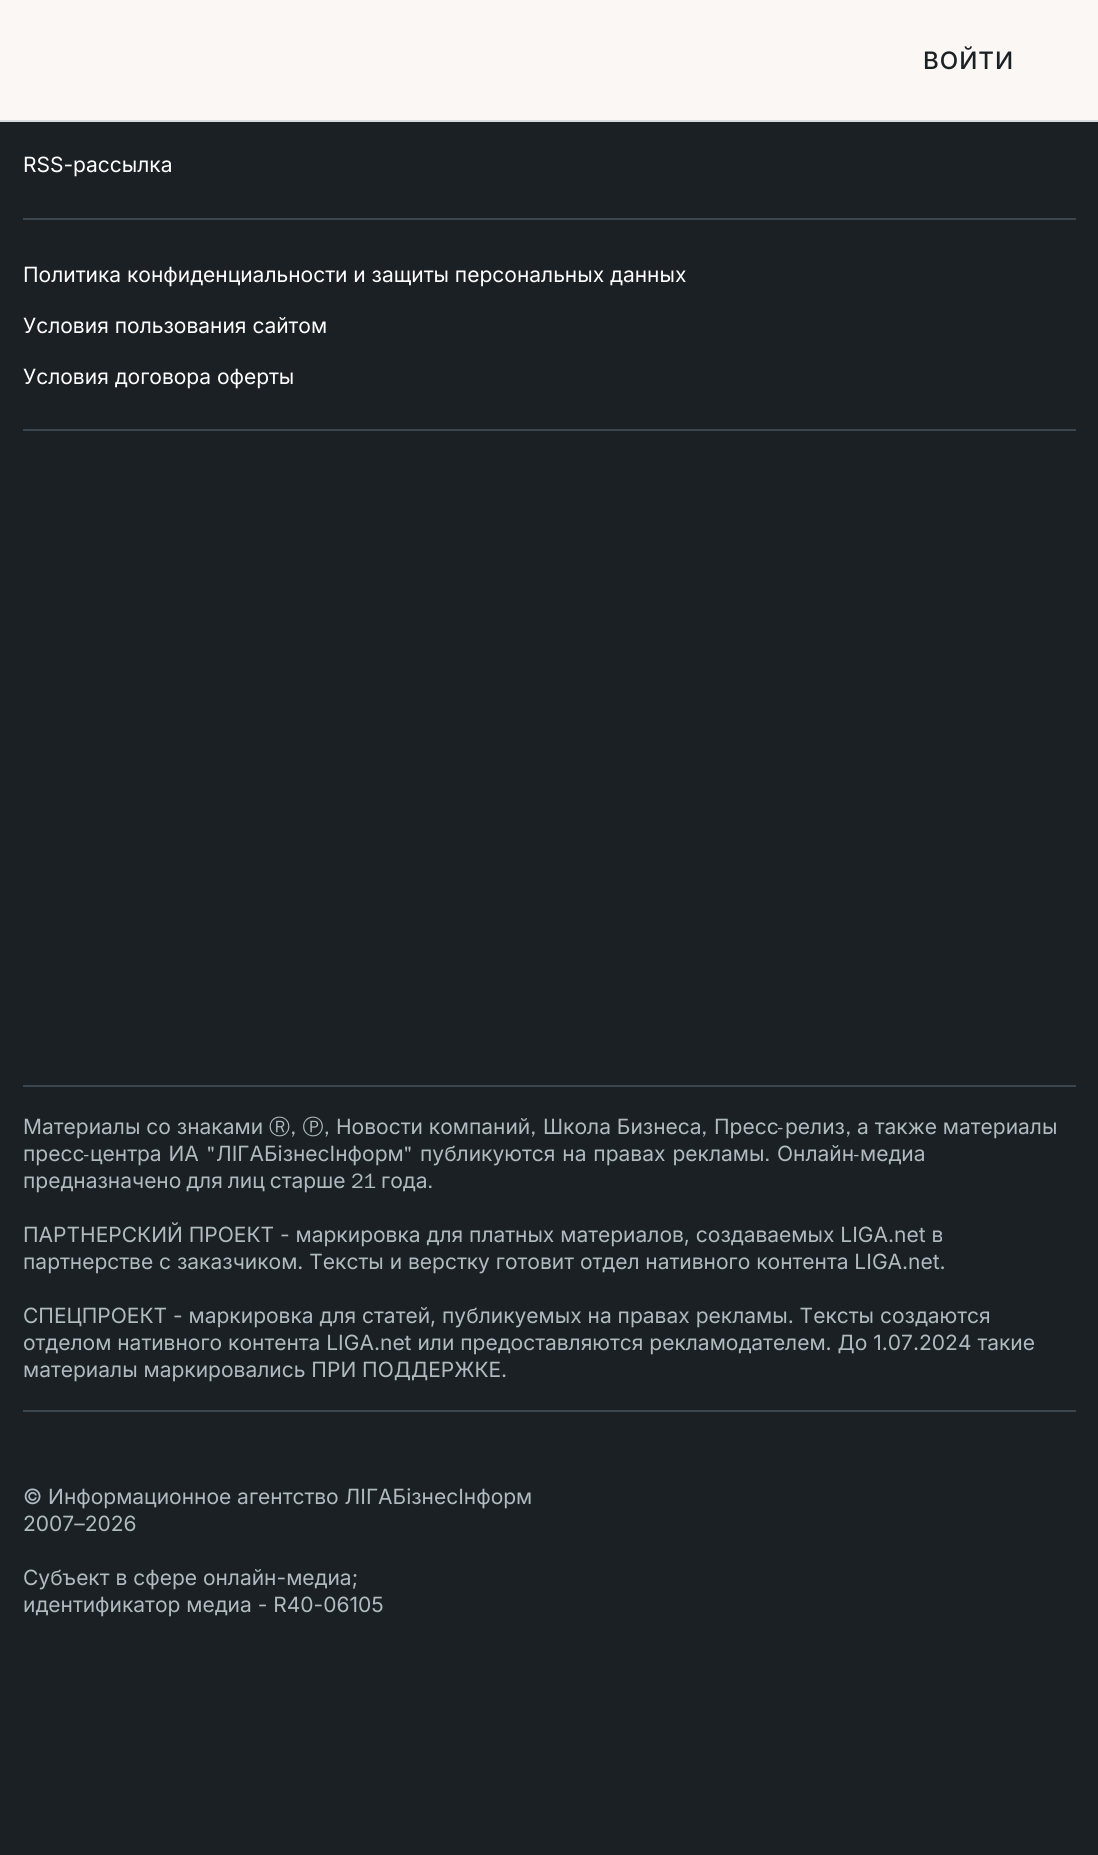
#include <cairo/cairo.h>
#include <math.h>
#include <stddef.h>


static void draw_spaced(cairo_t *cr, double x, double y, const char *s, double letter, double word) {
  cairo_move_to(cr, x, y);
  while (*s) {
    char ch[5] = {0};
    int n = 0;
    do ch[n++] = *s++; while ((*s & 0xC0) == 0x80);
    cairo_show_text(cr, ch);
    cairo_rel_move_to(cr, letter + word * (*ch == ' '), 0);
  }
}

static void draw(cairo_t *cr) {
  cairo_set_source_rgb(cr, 26 / 255.0, 32 / 255.0, 36 / 255.0);
  cairo_paint(cr);
  cairo_set_source_rgb(cr, 250 / 255.0, 247 / 255.0, 244 / 255.0);
  cairo_rectangle(cr, 0, 0, 1098, 120);
  cairo_fill(cr);
  cairo_set_source_rgb(cr, 213 / 255.0, 218 / 255.0, 221 / 255.0);
  cairo_rectangle(cr, 0, 120, 1098, 2);
  cairo_fill(cr);
  cairo_set_source_rgb(cr, 60 / 255.0, 70 / 255.0, 78 / 255.0);
  cairo_rectangle(cr, 23, 218, 1053, 2);
  cairo_fill(cr);
  cairo_rectangle(cr, 23, 429, 1053, 2);
  cairo_fill(cr);
  cairo_rectangle(cr, 23, 1085, 1053, 2);
  cairo_fill(cr);
  cairo_rectangle(cr, 23, 1410, 1053, 2);
  cairo_fill(cr);
  cairo_select_font_face(cr, "Inter Medium", CAIRO_FONT_SLANT_NORMAL, CAIRO_FONT_WEIGHT_NORMAL);
  cairo_set_font_size(cr, 24);
  cairo_set_source_rgb(cr, 26 / 255.0, 32 / 255.0, 36 / 255.0);
  draw_spaced(cr, 923, 69, "ВОЙТИ", 1, 0);
  cairo_select_font_face(cr, "Inter", CAIRO_FONT_SLANT_NORMAL, CAIRO_FONT_WEIGHT_NORMAL);
  cairo_set_font_size(cr, 21);
  cairo_set_source_rgb(cr, 1, 1, 1);
  cairo_move_to(cr, 23, 172);
  cairo_show_text(cr, "RSS-рассылка");
  cairo_move_to(cr, 23, 282);
  cairo_show_text(cr, "Политика конфиденциальности и защиты персональных данных");
  cairo_move_to(cr, 23, 333);
  cairo_show_text(cr, "Условия пользования сайтом");
  cairo_move_to(cr, 23, 384);
  cairo_show_text(cr, "Условия договора оферты");
  cairo_set_source_rgb(cr, 176 / 255.0, 186 / 255.0, 191 / 255.0);
  cairo_move_to(cr, 23, 1134);
  cairo_show_text(cr, "Материалы со знаками");
  cairo_select_font_face(cr, "WenQuanYi Zen Hei Medium", CAIRO_FONT_SLANT_NORMAL, CAIRO_FONT_WEIGHT_NORMAL);
  cairo_move_to(cr, 269, 1134);
  cairo_show_text(cr, "Ⓡ, Ⓟ,");
  cairo_select_font_face(cr, "Inter", CAIRO_FONT_SLANT_NORMAL, CAIRO_FONT_WEIGHT_NORMAL);
  cairo_move_to(cr, 336, 1134);
  cairo_show_text(cr, "Новости компаний");
  cairo_move_to(cr, 543, 1134);
  cairo_show_text(cr, "Школа Бизнеса");
  cairo_move_to(cr, 714, 1134);
  cairo_show_text(cr, "Пресс");
  cairo_select_font_face(cr, "WenQuanYi Zen Hei Medium", CAIRO_FONT_SLANT_NORMAL, CAIRO_FONT_WEIGHT_NORMAL);
  cairo_move_to(cr, 778, 1134);
  cairo_show_text(cr, "-");
  cairo_select_font_face(cr, "Inter", CAIRO_FONT_SLANT_NORMAL, CAIRO_FONT_WEIGHT_NORMAL);
  cairo_move_to(cr, 785, 1134);
  cairo_show_text(cr, "релиз");
  cairo_move_to(cr, 857, 1134);
  cairo_show_text(cr, "а также материалы");
  cairo_select_font_face(cr, "WenQuanYi Zen Hei Medium", CAIRO_FONT_SLANT_NORMAL, CAIRO_FONT_WEIGHT_NORMAL);
  cairo_move_to(cr, 530, 1134);
  cairo_show_text(cr, ",");
  cairo_move_to(cr, 701, 1134);
  cairo_show_text(cr, ",");
  cairo_move_to(cr, 845, 1134);
  cairo_show_text(cr, ",");
  cairo_select_font_face(cr, "Inter", CAIRO_FONT_SLANT_NORMAL, CAIRO_FONT_WEIGHT_NORMAL);
  cairo_move_to(cr, 23, 1161);
  cairo_show_text(cr, "пресс");
  cairo_select_font_face(cr, "WenQuanYi Zen Hei Medium", CAIRO_FONT_SLANT_NORMAL, CAIRO_FONT_WEIGHT_NORMAL);
  cairo_move_to(cr, 84, 1161);
  cairo_show_text(cr, "-");
  cairo_select_font_face(cr, "Inter", CAIRO_FONT_SLANT_NORMAL, CAIRO_FONT_WEIGHT_NORMAL);
  draw_spaced(cr, 90, 1161, "центра ИА", 0, 1);
  cairo_select_font_face(cr, "WenQuanYi Zen Hei Medium", CAIRO_FONT_SLANT_NORMAL, CAIRO_FONT_WEIGHT_NORMAL);
  cairo_move_to(cr, 206, 1161);
  cairo_show_text(cr, "\"");
  cairo_select_font_face(cr, "Inter", CAIRO_FONT_SLANT_NORMAL, CAIRO_FONT_WEIGHT_NORMAL);
  cairo_move_to(cr, 216, 1161);
  cairo_show_text(cr, "ЛІГАБізнесІнформ");
  cairo_select_font_face(cr, "WenQuanYi Zen Hei Medium", CAIRO_FONT_SLANT_NORMAL, CAIRO_FONT_WEIGHT_NORMAL);
  cairo_move_to(cr, 403, 1161);
  cairo_show_text(cr, "\"");
  cairo_select_font_face(cr, "Inter", CAIRO_FONT_SLANT_NORMAL, CAIRO_FONT_WEIGHT_NORMAL);
  draw_spaced(cr, 420, 1161, "публикуются на правах рекламы", 0, 1);
  cairo_move_to(cr, 777, 1161);
  cairo_show_text(cr, "Онлайн");
  cairo_select_font_face(cr, "WenQuanYi Zen Hei Medium", CAIRO_FONT_SLANT_NORMAL, CAIRO_FONT_WEIGHT_NORMAL);
  cairo_move_to(cr, 854, 1161);
  cairo_show_text(cr, "-");
  cairo_select_font_face(cr, "Inter", CAIRO_FONT_SLANT_NORMAL, CAIRO_FONT_WEIGHT_NORMAL);
  cairo_move_to(cr, 860, 1161);
  cairo_show_text(cr, "медиа");
  cairo_select_font_face(cr, "WenQuanYi Zen Hei Medium", CAIRO_FONT_SLANT_NORMAL, CAIRO_FONT_WEIGHT_NORMAL);
  cairo_move_to(cr, 764, 1161);
  cairo_show_text(cr, ".");
  cairo_select_font_face(cr, "Inter", CAIRO_FONT_SLANT_NORMAL, CAIRO_FONT_WEIGHT_NORMAL);
  draw_spaced(cr, 23, 1188, "предназначено для лиц старше", 0, -1);
  cairo_select_font_face(cr, "WenQuanYi Zen Hei Medium", CAIRO_FONT_SLANT_NORMAL, CAIRO_FONT_WEIGHT_NORMAL);
  cairo_move_to(cr, 351, 1188);
  cairo_show_text(cr, "21");
  cairo_select_font_face(cr, "Inter", CAIRO_FONT_SLANT_NORMAL, CAIRO_FONT_WEIGHT_NORMAL);
  cairo_move_to(cr, 381, 1188);
  cairo_show_text(cr, "года");
  cairo_select_font_face(cr, "WenQuanYi Zen Hei Medium", CAIRO_FONT_SLANT_NORMAL, CAIRO_FONT_WEIGHT_NORMAL);
  cairo_move_to(cr, 427, 1188);
  cairo_show_text(cr, ".");
  cairo_select_font_face(cr, "Inter", CAIRO_FONT_SLANT_NORMAL, CAIRO_FONT_WEIGHT_NORMAL);
  cairo_move_to(cr, 23, 1242);
  cairo_show_text(cr, "ПАРТНЕРСКИЙ ПРОЕКТ - маркировка для платных материалов, создаваемых LIGA.net в");
  cairo_move_to(cr, 23, 1269);
  cairo_show_text(cr, "партнерстве с заказчиком. Тексты и верстку готовит отдел нативного контента LIGA.net.");
  cairo_move_to(cr, 23, 1323);
  cairo_show_text(cr, "СПЕЦПРОЕКТ - маркировка для статей, публикуемых на правах рекламы. Тексты создаются");
  cairo_move_to(cr, 23, 1350);
  cairo_show_text(cr, "отделом нативного контента LIGA.net или предоставляются рекламодателем. До 1.07.2024 такие");
  cairo_move_to(cr, 23, 1377);
  cairo_show_text(cr, "материалы маркировались ПРИ ПОДДЕРЖКЕ.");
  cairo_move_to(cr, 23, 1504);
  cairo_show_text(cr, "© Информационное агентство ЛІГАБізнесІнформ");
  cairo_move_to(cr, 23, 1531);
  cairo_show_text(cr, "2007–2026");
  cairo_move_to(cr, 23, 1585);
  cairo_show_text(cr, "Субъект в сфере онлайн-медиа;");
  cairo_move_to(cr, 23, 1612);
  cairo_show_text(cr, "идентификатор медиа - R40-06105");
}

int main(void) {
  cairo_surface_t *surface = cairo_image_surface_create(CAIRO_FORMAT_RGB24, 1098, 1855);
  cairo_t *cr = cairo_create(surface);
  cairo_font_options_t *options = cairo_font_options_create();
  cairo_font_options_set_hint_metrics(options, CAIRO_HINT_METRICS_OFF);
  cairo_font_options_set_hint_style(options, CAIRO_HINT_STYLE_NONE);
  cairo_set_font_options(cr, options);
  cairo_set_miter_limit(cr, 4);
  draw(cr);
  cairo_surface_write_to_png(surface, "out.png");
  cairo_font_options_destroy(options);
  cairo_destroy(cr);
  cairo_surface_destroy(surface);
  return 0;
}
